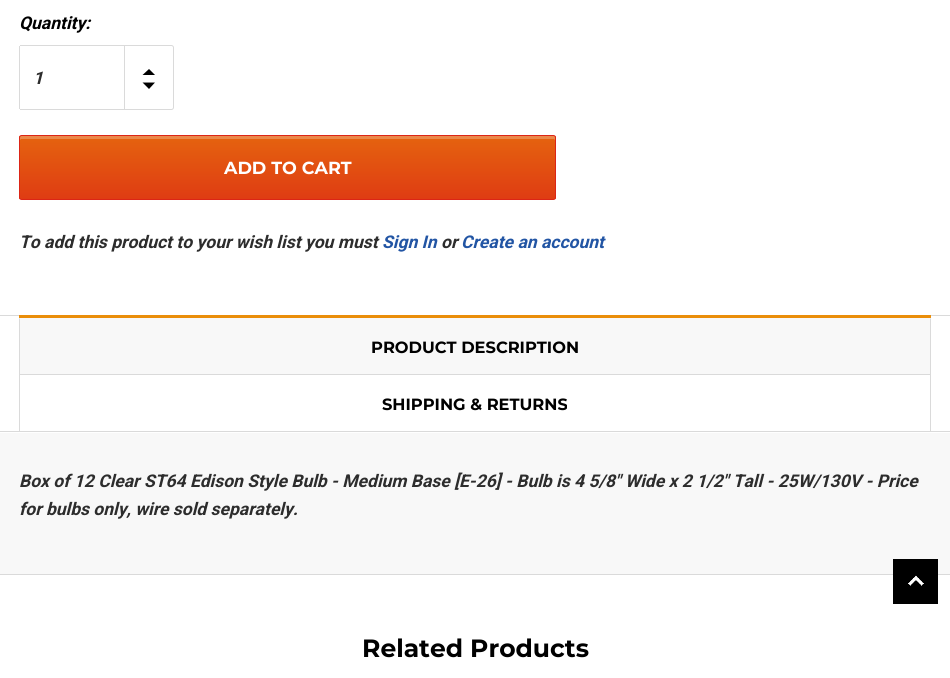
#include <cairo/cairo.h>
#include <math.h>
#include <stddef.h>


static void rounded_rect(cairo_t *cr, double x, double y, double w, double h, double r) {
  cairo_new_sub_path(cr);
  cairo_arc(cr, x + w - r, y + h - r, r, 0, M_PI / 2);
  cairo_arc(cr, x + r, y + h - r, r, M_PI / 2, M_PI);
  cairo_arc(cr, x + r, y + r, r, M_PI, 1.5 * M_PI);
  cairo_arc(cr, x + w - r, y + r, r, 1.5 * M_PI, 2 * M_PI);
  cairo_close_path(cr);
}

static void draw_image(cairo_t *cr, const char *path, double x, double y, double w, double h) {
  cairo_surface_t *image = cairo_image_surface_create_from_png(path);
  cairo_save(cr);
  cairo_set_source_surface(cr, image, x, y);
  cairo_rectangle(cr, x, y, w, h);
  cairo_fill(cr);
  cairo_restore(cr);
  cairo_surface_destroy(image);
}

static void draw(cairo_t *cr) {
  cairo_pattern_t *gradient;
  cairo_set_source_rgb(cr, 1, 1, 1);
  cairo_paint(cr);
  cairo_set_source_rgb(cr, 218 / 255.0, 218 / 255.0, 218 / 255.0);
  cairo_rectangle(cr, 20, 45, 104, 1);
  cairo_fill(cr);
  cairo_rectangle(cr, 20, 109, 104, 1);
  cairo_fill(cr);
  cairo_rectangle(cr, 19, 46, 1, 63);
  cairo_fill(cr);
  cairo_new_path(cr);
  cairo_move_to(cr, 124.5, 45.5);
  cairo_line_to(cr, 171.5, 45.5);
  cairo_curve_to(cr, 172.5, 45.5, 173.5, 46.5, 173.5, 47.5);
  cairo_line_to(cr, 173.5, 107.5);
  cairo_curve_to(cr, 173.5, 108.5, 172.5, 109.5, 171.5, 109.5);
  cairo_line_to(cr, 124.5, 109.5);
  cairo_close_path(cr);
  cairo_set_line_width(cr, 1);
  cairo_stroke(cr);
  cairo_set_source_rgb(cr, 0, 0, 0);
  cairo_new_path(cr);
  cairo_move_to(cr, 155, 75);
  cairo_line_to(cr, 142.5, 75);
  cairo_line_to(cr, 149, 69);
  cairo_close_path(cr);
  cairo_move_to(cr, 142.5, 82.5);
  cairo_line_to(cr, 155, 82.5);
  cairo_line_to(cr, 149, 89);
  cairo_close_path(cr);
  cairo_fill(cr);
  cairo_save(cr);
  rounded_rect(cr, 19, 135, 537, 65, 2.5);
  cairo_clip(cr);
  gradient = cairo_pattern_create_linear(288, 136, 288, 199);
  cairo_pattern_add_color_stop_rgba(gradient, 0, 229 / 255.0, 99 / 255.0, 15 / 255.0, 1);
  cairo_pattern_add_color_stop_rgba(gradient, 1, 223 / 255.0, 60 / 255.0, 19 / 255.0, 1);
  cairo_set_source(cr, gradient);
  cairo_pattern_destroy(gradient);
  cairo_rectangle(cr, 19, 136, 537, 63);
  cairo_fill(cr);
  cairo_restore(cr);
  cairo_set_source_rgb(cr, 235 / 255.0, 136 / 255.0, 74 / 255.0);
  cairo_new_path(cr);
  cairo_move_to(cr, 21, 139);
  cairo_line_to(cr, 554, 139);
  cairo_line_to(cr, 555, 140);
  cairo_line_to(cr, 555, 136);
  cairo_line_to(cr, 21, 136);
  cairo_curve_to(cr, 19, 136, 20, 139, 20, 140);
  cairo_close_path(cr);
  cairo_fill(cr);
  rounded_rect(cr, 19.5, 135.5, 536, 64, 2);
  cairo_set_source_rgb(cr, 220 / 255.0, 37 / 255.0, 22 / 255.0);
  cairo_stroke(cr);
  cairo_set_source_rgb(cr, 218 / 255.0, 218 / 255.0, 218 / 255.0);
  cairo_rectangle(cr, 0, 315, 950, 1);
  cairo_fill(cr);
  cairo_set_source_rgb(cr, 234 / 255.0, 142 / 255.0, 10 / 255.0);
  cairo_rectangle(cr, 19, 315, 912, 3);
  cairo_fill(cr);
  cairo_set_source_rgb(cr, 248 / 255.0, 248 / 255.0, 248 / 255.0);
  cairo_rectangle(cr, 19, 318, 912, 56);
  cairo_fill(cr);
  cairo_set_source_rgb(cr, 218 / 255.0, 218 / 255.0, 218 / 255.0);
  cairo_new_path(cr);
  cairo_move_to(cr, 931, 318);
  cairo_line_to(cr, 931, 375);
  cairo_line_to(cr, 930, 375);
  cairo_line_to(cr, 930, 319);
  cairo_close_path(cr);
  cairo_fill(cr);
  cairo_new_path(cr);
  cairo_move_to(cr, 19, 375);
  cairo_line_to(cr, 19, 318);
  cairo_line_to(cr, 20, 319);
  cairo_line_to(cr, 20, 375);
  cairo_close_path(cr);
  cairo_fill(cr);
  cairo_rectangle(cr, 19, 374, 912, 1);
  cairo_fill(cr);
  cairo_rectangle(cr, 930, 374, 1, 57);
  cairo_fill(cr);
  cairo_rectangle(cr, 19, 374, 1, 57);
  cairo_fill(cr);
  cairo_set_source_rgb(cr, 248 / 255.0, 248 / 255.0, 248 / 255.0);
  cairo_rectangle(cr, 0, 433, 950, 141);
  cairo_fill(cr);
  cairo_set_source_rgb(cr, 218 / 255.0, 218 / 255.0, 218 / 255.0);
  cairo_rectangle(cr, 0, 431, 950, 1);
  cairo_fill(cr);
  cairo_rectangle(cr, 0, 574, 950, 1);
  cairo_fill(cr);
  cairo_set_source_rgb(cr, 0, 0, 0);
  cairo_rectangle(cr, 893, 559, 45, 45);
  cairo_fill(cr);
  draw_image(cr, "images/1.png", 908, 575, 16, 11);
  cairo_select_font_face(cr, "Roboto", CAIRO_FONT_SLANT_ITALIC, CAIRO_FONT_WEIGHT_BOLD);
  cairo_set_font_size(cr, 17.5);
  cairo_move_to(cr, 19, 29);
  cairo_show_text(cr, "Quantity:");
  cairo_set_source_rgb(cr, 45 / 255.0, 45 / 255.0, 45 / 255.0);
  cairo_move_to(cr, 33, 84);
  cairo_show_text(cr, "1");
  cairo_select_font_face(cr, "Montserrat", CAIRO_FONT_SLANT_NORMAL, CAIRO_FONT_WEIGHT_BOLD);
  cairo_set_source_rgb(cr, 1, 1, 1);
  cairo_move_to(cr, 224, 174);
  cairo_show_text(cr, "ADD TO CART");
  cairo_select_font_face(cr, "Roboto", CAIRO_FONT_SLANT_ITALIC, CAIRO_FONT_WEIGHT_BOLD);
  cairo_set_source_rgb(cr, 45 / 255.0, 45 / 255.0, 45 / 255.0);
  cairo_move_to(cr, 19, 248);
  cairo_show_text(cr, "To add this product to your wish list you must");
  cairo_set_source_rgb(cr, 34 / 255.0, 85 / 255.0, 164 / 255.0);
  cairo_move_to(cr, 382, 248);
  cairo_show_text(cr, "Sign In");
  cairo_set_source_rgb(cr, 45 / 255.0, 45 / 255.0, 45 / 255.0);
  cairo_move_to(cr, 441, 248);
  cairo_show_text(cr, "or");
  cairo_set_source_rgb(cr, 34 / 255.0, 85 / 255.0, 164 / 255.0);
  cairo_move_to(cr, 461, 248);
  cairo_show_text(cr, "Create an account");
  cairo_select_font_face(cr, "Montserrat", CAIRO_FONT_SLANT_NORMAL, CAIRO_FONT_WEIGHT_BOLD);
  cairo_set_font_size(cr, 16.25);
  cairo_set_source_rgb(cr, 0, 0, 0);
  cairo_move_to(cr, 371, 353);
  cairo_show_text(cr, "PRODUCT DESCRIPTION");
  cairo_move_to(cr, 382, 410);
  cairo_show_text(cr, "SHIPPING & RETURNS");
  cairo_select_font_face(cr, "Roboto", CAIRO_FONT_SLANT_ITALIC, CAIRO_FONT_WEIGHT_BOLD);
  cairo_set_font_size(cr, 17.5);
  cairo_set_source_rgb(cr, 45 / 255.0, 45 / 255.0, 45 / 255.0);
  cairo_move_to(cr, 19, 487);
  cairo_show_text(cr, "Box of 12 Clear ST64 Edison Style Bulb - Medium Base [E-26] - Bulb is 4 5/8\" Wide x 2 1/2\" Tall - 25W/130V - Price");
  cairo_move_to(cr, 19, 515);
  cairo_show_text(cr, "for bulbs only, wire sold separately.");
  cairo_select_font_face(cr, "Montserrat", CAIRO_FONT_SLANT_NORMAL, CAIRO_FONT_WEIGHT_BOLD);
  cairo_set_font_size(cr, 25);
  cairo_set_source_rgb(cr, 0, 0, 0);
  cairo_move_to(cr, 362, 657);
  cairo_show_text(cr, "Related Products");
}

int main(void) {
  cairo_surface_t *surface = cairo_image_surface_create(CAIRO_FORMAT_RGB24, 950, 678);
  cairo_t *cr = cairo_create(surface);
  cairo_font_options_t *options = cairo_font_options_create();
  cairo_font_options_set_hint_metrics(options, CAIRO_HINT_METRICS_OFF);
  cairo_font_options_set_hint_style(options, CAIRO_HINT_STYLE_NONE);
  cairo_set_font_options(cr, options);
  cairo_set_miter_limit(cr, 4);
  draw(cr);
  cairo_surface_write_to_png(surface, "out.png");
  cairo_font_options_destroy(options);
  cairo_destroy(cr);
  cairo_surface_destroy(surface);
  return 0;
}
